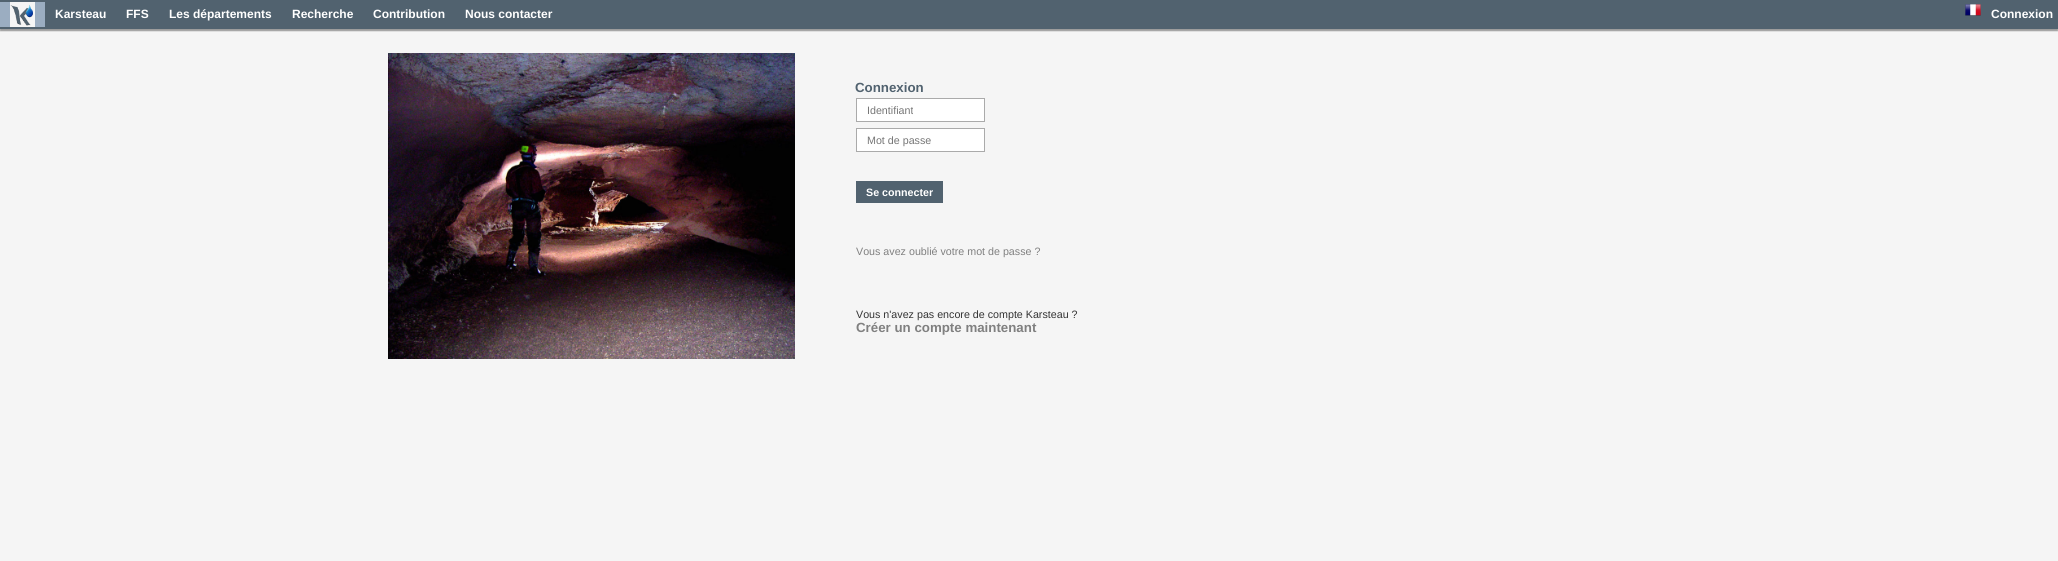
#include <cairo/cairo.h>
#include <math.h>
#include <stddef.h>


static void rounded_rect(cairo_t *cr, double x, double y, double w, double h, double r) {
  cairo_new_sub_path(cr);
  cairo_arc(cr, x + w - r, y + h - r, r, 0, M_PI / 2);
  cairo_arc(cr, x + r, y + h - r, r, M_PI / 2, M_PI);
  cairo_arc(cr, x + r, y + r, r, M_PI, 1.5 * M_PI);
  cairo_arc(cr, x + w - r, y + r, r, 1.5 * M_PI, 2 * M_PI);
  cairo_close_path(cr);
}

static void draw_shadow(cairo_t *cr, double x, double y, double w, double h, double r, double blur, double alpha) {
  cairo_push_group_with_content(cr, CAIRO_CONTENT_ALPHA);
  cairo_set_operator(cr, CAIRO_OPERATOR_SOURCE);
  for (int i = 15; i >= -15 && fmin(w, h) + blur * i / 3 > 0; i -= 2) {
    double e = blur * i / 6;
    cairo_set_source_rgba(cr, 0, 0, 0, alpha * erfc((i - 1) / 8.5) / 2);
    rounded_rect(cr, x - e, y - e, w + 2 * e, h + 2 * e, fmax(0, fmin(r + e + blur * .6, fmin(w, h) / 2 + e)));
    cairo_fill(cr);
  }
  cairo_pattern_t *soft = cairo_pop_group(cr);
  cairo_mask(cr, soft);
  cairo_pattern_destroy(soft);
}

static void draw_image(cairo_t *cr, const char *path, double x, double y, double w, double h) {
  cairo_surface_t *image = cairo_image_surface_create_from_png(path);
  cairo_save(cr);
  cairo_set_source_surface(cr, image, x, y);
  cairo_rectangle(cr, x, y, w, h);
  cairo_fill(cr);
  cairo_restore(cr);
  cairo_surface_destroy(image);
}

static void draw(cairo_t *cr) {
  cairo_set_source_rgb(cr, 245 / 255.0, 245 / 255.0, 245 / 255.0);
  cairo_paint(cr);
  cairo_set_source_rgb(cr, 156 / 255.0, 156 / 255.0, 156 / 255.0);
  draw_shadow(cr, 0, 2, 2058, 29, 0, 0.5, 1);
  cairo_set_source_rgb(cr, 81 / 255.0, 98 / 255.0, 111 / 255.0);
  cairo_rectangle(cr, 0, 0, 2058, 29);
  cairo_fill(cr);
  cairo_set_source_rgb(cr, 155 / 255.0, 173 / 255.0, 193 / 255.0);
  cairo_rectangle(cr, 0, 2, 45, 25);
  cairo_fill(cr);
  cairo_set_source_rgb(cr, 245 / 255.0, 245 / 255.0, 245 / 255.0);
  cairo_rectangle(cr, 10, 2, 25, 25);
  cairo_fill(cr);
  draw_image(cr, "images/1.png", 10, 4, 23, 22);
  draw_image(cr, "images/2.png", 1965, 4, 16, 12);
  draw_image(cr, "images/3.png", 388, 53, 407, 306);
  cairo_set_source_rgb(cr, 1, 1, 1);
  cairo_rectangle(cr, 856.5, 98.5, 128, 23);
  cairo_fill_preserve(cr);
  cairo_set_source_rgb(cr, 170 / 255.0, 170 / 255.0, 170 / 255.0);
  cairo_set_line_width(cr, 1);
  cairo_stroke(cr);
  cairo_set_source_rgb(cr, 1, 1, 1);
  cairo_rectangle(cr, 856.5, 128.5, 128, 23);
  cairo_fill_preserve(cr);
  cairo_set_source_rgb(cr, 170 / 255.0, 170 / 255.0, 170 / 255.0);
  cairo_stroke(cr);
  cairo_set_source_rgb(cr, 81 / 255.0, 98 / 255.0, 111 / 255.0);
  cairo_rectangle(cr, 856, 181, 87, 22);
  cairo_fill(cr);
  cairo_select_font_face(cr, "Liberation Sans", CAIRO_FONT_SLANT_NORMAL, CAIRO_FONT_WEIGHT_BOLD);
  cairo_set_font_size(cr, 12);
  cairo_set_source_rgb(cr, 1, 1, 1);
  cairo_move_to(cr, 55, 18);
  cairo_show_text(cr, "Karsteau");
  cairo_move_to(cr, 126, 18);
  cairo_show_text(cr, "FFS");
  cairo_move_to(cr, 169, 18);
  cairo_show_text(cr, "Les départements");
  cairo_move_to(cr, 292, 18);
  cairo_show_text(cr, "Recherche");
  cairo_move_to(cr, 373, 18);
  cairo_show_text(cr, "Contribution");
  cairo_move_to(cr, 465, 18);
  cairo_show_text(cr, "Nous contacter");
  cairo_move_to(cr, 1991, 18);
  cairo_show_text(cr, "Connexion");
  cairo_set_font_size(cr, 13.3);
  cairo_set_source_rgb(cr, 81 / 255.0, 98 / 255.0, 111 / 255.0);
  cairo_move_to(cr, 855, 92);
  cairo_show_text(cr, "Connexion");
  cairo_select_font_face(cr, "Liberation Sans", CAIRO_FONT_SLANT_NORMAL, CAIRO_FONT_WEIGHT_NORMAL);
  cairo_set_font_size(cr, 10.7);
  cairo_set_source_rgb(cr, 117 / 255.0, 117 / 255.0, 117 / 255.0);
  cairo_move_to(cr, 867, 114);
  cairo_show_text(cr, "Identifiant");
  cairo_move_to(cr, 867, 144);
  cairo_show_text(cr, "Mot de passe");
  cairo_select_font_face(cr, "Liberation Sans", CAIRO_FONT_SLANT_NORMAL, CAIRO_FONT_WEIGHT_BOLD);
  cairo_set_source_rgb(cr, 1, 1, 1);
  cairo_move_to(cr, 866, 196);
  cairo_show_text(cr, "Se connecter");
  cairo_select_font_face(cr, "Liberation Sans", CAIRO_FONT_SLANT_NORMAL, CAIRO_FONT_WEIGHT_NORMAL);
  cairo_set_source_rgb(cr, 128 / 255.0, 128 / 255.0, 128 / 255.0);
  cairo_move_to(cr, 856, 255);
  cairo_show_text(cr, "Vous avez oublié votre mot de passe ?");
  cairo_set_source_rgb(cr, 51 / 255.0, 51 / 255.0, 51 / 255.0);
  cairo_move_to(cr, 856, 318);
  cairo_show_text(cr, "Vous n'avez pas encore de compte Karsteau ?");
  cairo_select_font_face(cr, "Liberation Sans", CAIRO_FONT_SLANT_NORMAL, CAIRO_FONT_WEIGHT_BOLD);
  cairo_set_font_size(cr, 13.3);
  cairo_set_source_rgb(cr, 128 / 255.0, 128 / 255.0, 128 / 255.0);
  cairo_move_to(cr, 856, 332);
  cairo_show_text(cr, "Créer un compte maintenant");
}

int main(void) {
  cairo_surface_t *surface = cairo_image_surface_create(CAIRO_FORMAT_RGB24, 2058, 561);
  cairo_t *cr = cairo_create(surface);
  cairo_font_options_t *options = cairo_font_options_create();
  cairo_font_options_set_hint_metrics(options, CAIRO_HINT_METRICS_OFF);
  cairo_font_options_set_hint_style(options, CAIRO_HINT_STYLE_NONE);
  cairo_set_font_options(cr, options);
  cairo_set_miter_limit(cr, 4);
  draw(cr);
  cairo_surface_write_to_png(surface, "out.png");
  cairo_font_options_destroy(options);
  cairo_destroy(cr);
  cairo_surface_destroy(surface);
  return 0;
}
